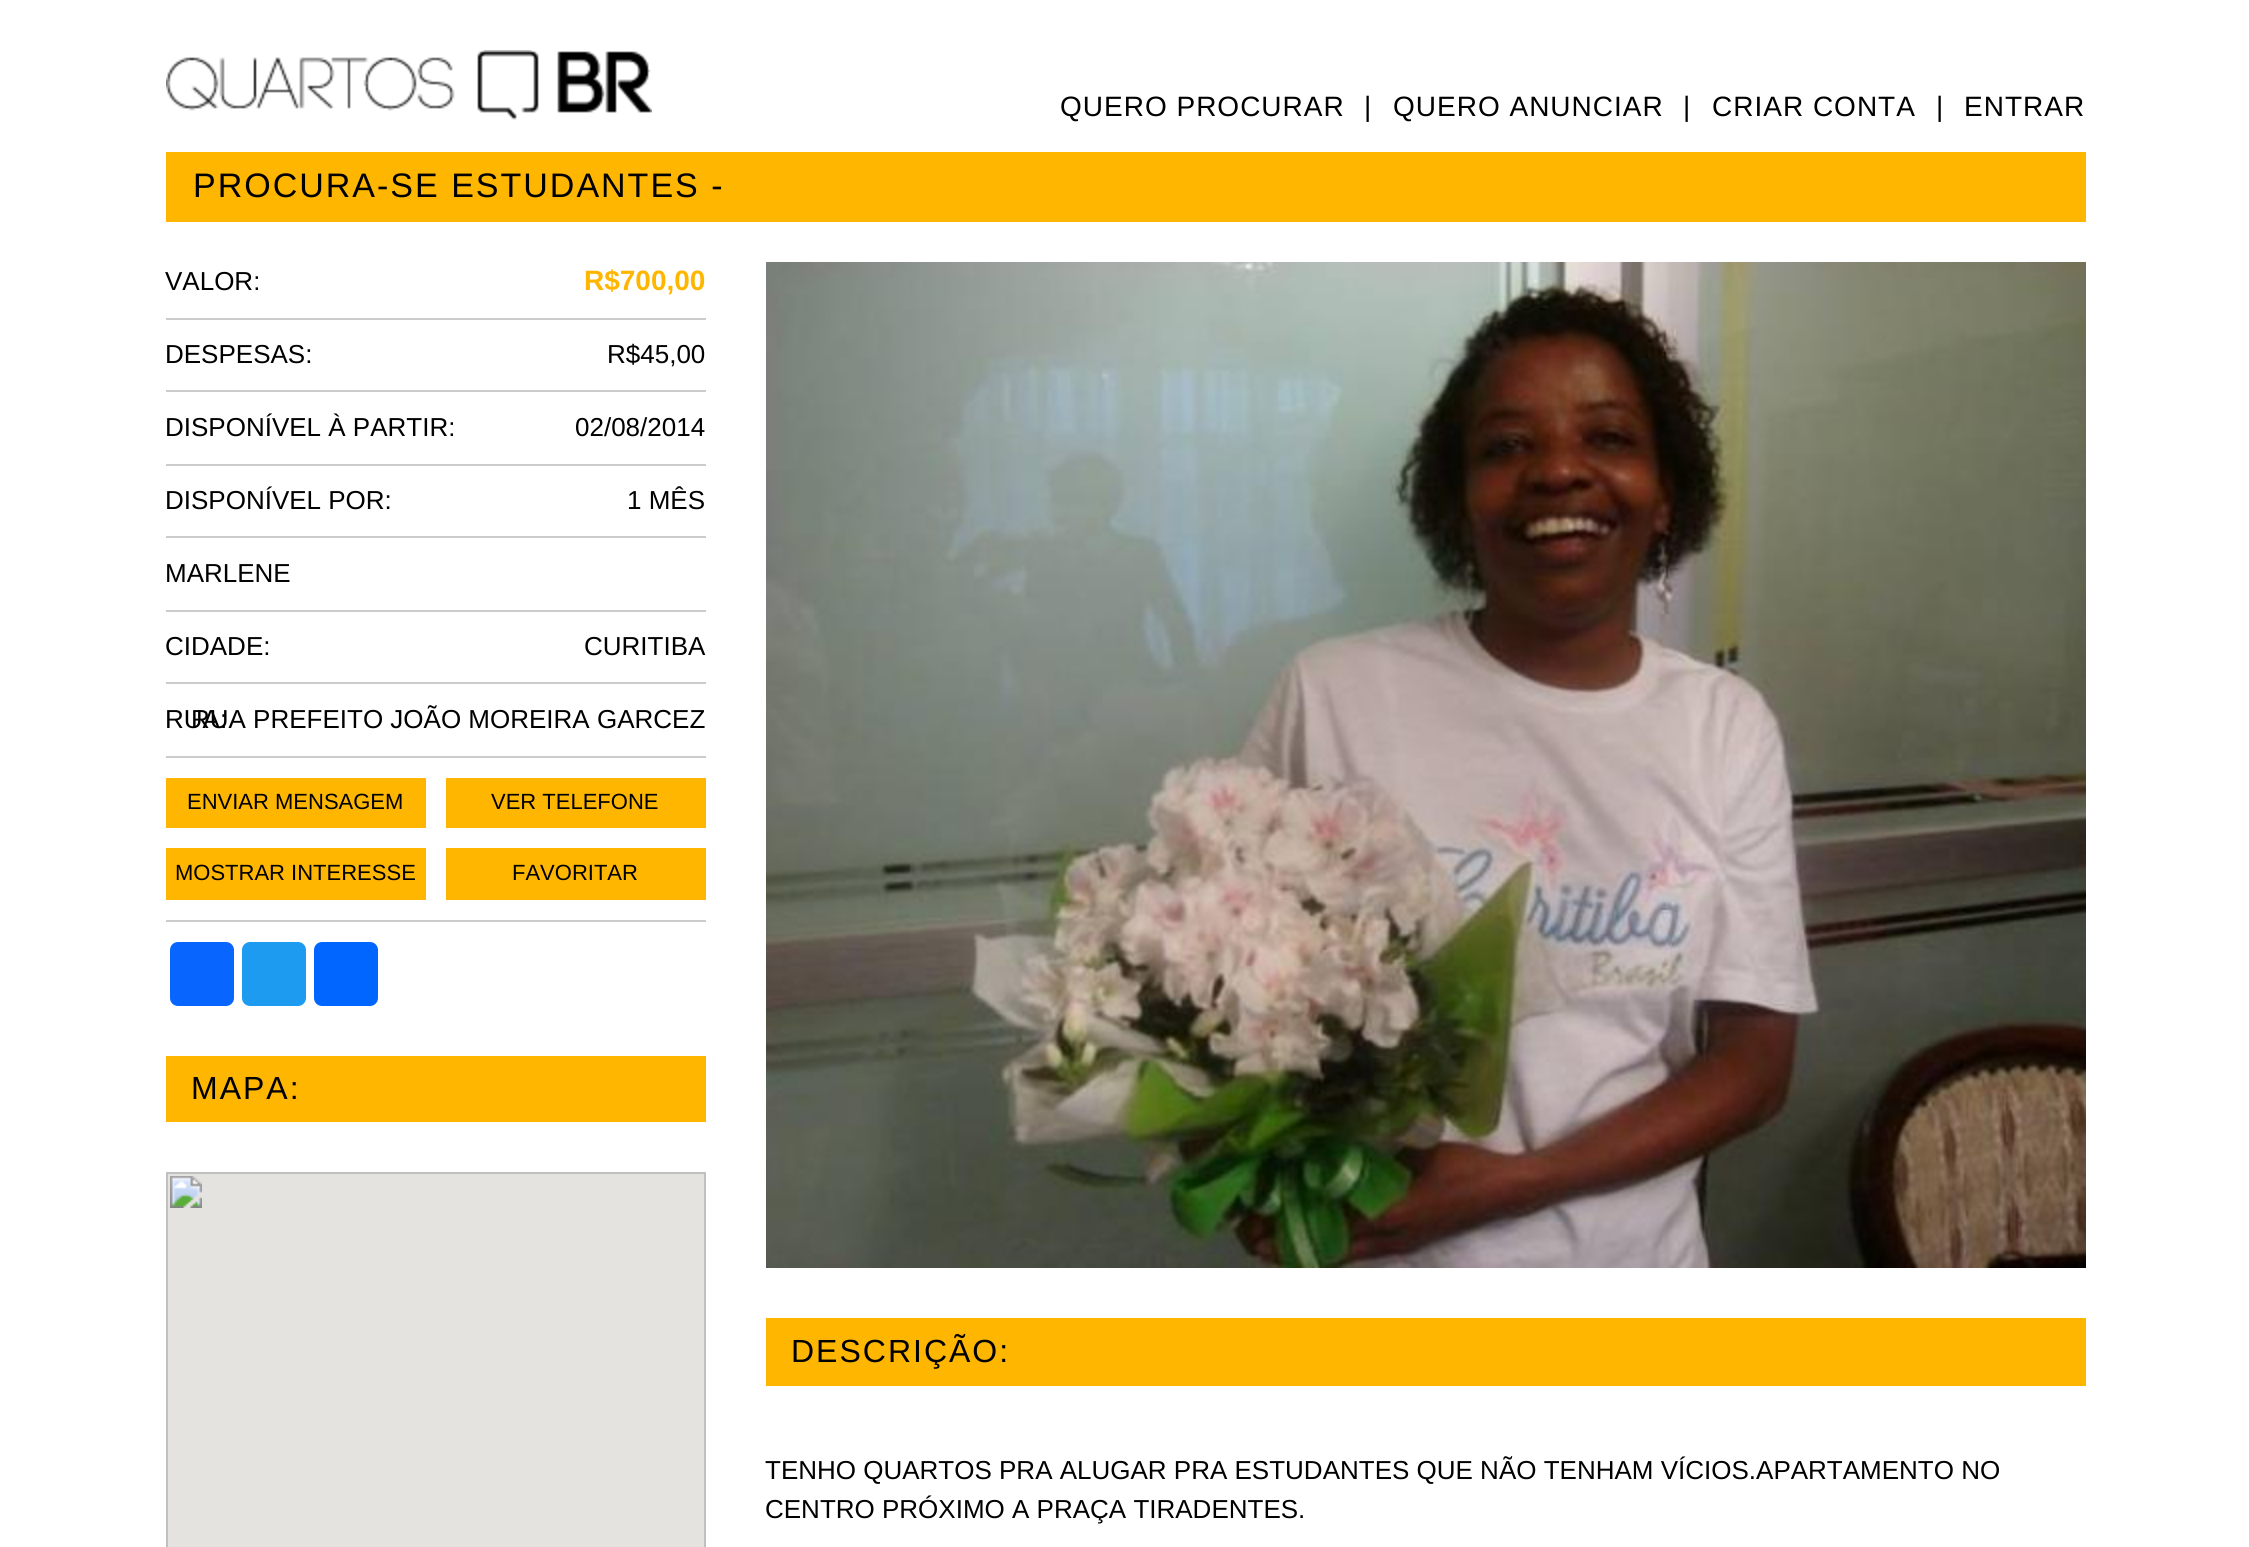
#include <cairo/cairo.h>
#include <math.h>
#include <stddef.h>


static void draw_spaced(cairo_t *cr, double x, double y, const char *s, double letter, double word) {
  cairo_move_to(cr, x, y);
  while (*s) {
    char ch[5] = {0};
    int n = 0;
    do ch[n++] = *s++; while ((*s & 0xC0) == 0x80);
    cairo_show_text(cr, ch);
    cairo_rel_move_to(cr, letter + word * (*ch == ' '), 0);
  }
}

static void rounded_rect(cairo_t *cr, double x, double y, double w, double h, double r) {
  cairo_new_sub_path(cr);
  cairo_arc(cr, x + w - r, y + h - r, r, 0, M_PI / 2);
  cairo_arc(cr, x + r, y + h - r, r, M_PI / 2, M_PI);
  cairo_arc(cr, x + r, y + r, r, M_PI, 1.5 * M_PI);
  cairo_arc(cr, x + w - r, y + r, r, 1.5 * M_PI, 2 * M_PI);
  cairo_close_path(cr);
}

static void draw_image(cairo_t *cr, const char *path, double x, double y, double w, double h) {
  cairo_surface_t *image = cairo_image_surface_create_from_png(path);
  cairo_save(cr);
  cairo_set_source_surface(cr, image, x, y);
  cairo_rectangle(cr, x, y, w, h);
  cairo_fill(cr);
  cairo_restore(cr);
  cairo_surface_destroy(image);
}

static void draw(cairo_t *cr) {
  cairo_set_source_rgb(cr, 1, 1, 1);
  cairo_paint(cr);
  draw_image(cr, "images/1.png", 166, 50, 486, 70);
  cairo_set_source_rgb(cr, 1, 182 / 255.0, 0);
  cairo_rectangle(cr, 166, 152, 1920, 70);
  cairo_fill(cr);
  cairo_set_source_rgb(cr, 204 / 255.0, 204 / 255.0, 204 / 255.0);
  cairo_rectangle(cr, 166, 318, 540, 2);
  cairo_fill(cr);
  cairo_rectangle(cr, 166, 390, 540, 2);
  cairo_fill(cr);
  cairo_rectangle(cr, 166, 464, 540, 2);
  cairo_fill(cr);
  cairo_rectangle(cr, 166, 536, 540, 2);
  cairo_fill(cr);
  cairo_rectangle(cr, 166, 610, 540, 2);
  cairo_fill(cr);
  cairo_rectangle(cr, 166, 682, 540, 2);
  cairo_fill(cr);
  cairo_rectangle(cr, 166, 756, 540, 2);
  cairo_fill(cr);
  cairo_set_source_rgb(cr, 1, 182 / 255.0, 0);
  cairo_rectangle(cr, 166, 778, 260, 50);
  cairo_fill(cr);
  cairo_rectangle(cr, 446, 778, 260, 50);
  cairo_fill(cr);
  cairo_rectangle(cr, 166, 848, 260, 52);
  cairo_fill(cr);
  cairo_rectangle(cr, 446, 848, 260, 52);
  cairo_fill(cr);
  cairo_set_source_rgb(cr, 204 / 255.0, 204 / 255.0, 204 / 255.0);
  cairo_rectangle(cr, 166, 920, 540, 2);
  cairo_fill(cr);
  cairo_set_source_rgb(cr, 8 / 255.0, 102 / 255.0, 1);
  rounded_rect(cr, 170, 942, 64, 64, 8);
  cairo_fill(cr);
  cairo_set_source_rgb(cr, 29 / 255.0, 155 / 255.0, 240 / 255.0);
  rounded_rect(cr, 242, 942, 64, 64, 8);
  cairo_fill(cr);
  cairo_set_source_rgb(cr, 1 / 255.0, 102 / 255.0, 1);
  rounded_rect(cr, 314, 942, 64, 64, 8);
  cairo_fill(cr);
  cairo_set_source_rgb(cr, 1, 182 / 255.0, 0);
  cairo_rectangle(cr, 166, 1056, 540, 66);
  cairo_fill(cr);
  draw_image(cr, "images/2.png", 166, 1172, 540, 375);
  draw_image(cr, "images/3.png", 766, 262, 1320, 1006);
  cairo_rectangle(cr, 766, 1318, 1320, 68);
  cairo_fill(cr);
  cairo_select_font_face(cr, "Liberation Sans", CAIRO_FONT_SLANT_NORMAL, CAIRO_FONT_WEIGHT_NORMAL);
  cairo_set_font_size(cr, 28);
  cairo_set_source_rgb(cr, 0, 0, 0);
  draw_spaced(cr, 1060, 116, "QUERO PROCURAR", 1, 0);
  draw_spaced(cr, 1364, 116, "|", 1, 0);
  draw_spaced(cr, 1393, 116, "QUERO ANUNCIAR", 1, 0);
  draw_spaced(cr, 1683, 116, "|", 1, 0);
  draw_spaced(cr, 1712, 116, "CRIAR CONTA", 1, 0);
  draw_spaced(cr, 1936, 116, "|", 1, 0);
  draw_spaced(cr, 1964, 116, "ENTRAR", 1, 0);
  cairo_set_font_size(cr, 34);
  draw_spaced(cr, 193, 197, "PROCURA-SE ESTUDANTES -", 2, 0);
  cairo_set_font_size(cr, 26);
  cairo_move_to(cr, 165, 290);
  cairo_show_text(cr, "VALOR:");
  cairo_select_font_face(cr, "Liberation Sans", CAIRO_FONT_SLANT_NORMAL, CAIRO_FONT_WEIGHT_BOLD);
  cairo_set_font_size(cr, 28);
  cairo_set_source_rgb(cr, 1, 182 / 255.0, 0);
  cairo_move_to(cr, 584, 290);
  cairo_show_text(cr, "R$700,00");
  cairo_select_font_face(cr, "Liberation Sans", CAIRO_FONT_SLANT_NORMAL, CAIRO_FONT_WEIGHT_NORMAL);
  cairo_set_font_size(cr, 26);
  cairo_set_source_rgb(cr, 0, 0, 0);
  cairo_move_to(cr, 165, 363);
  cairo_show_text(cr, "DESPESAS:");
  cairo_move_to(cr, 607, 363);
  cairo_show_text(cr, "R$45,00");
  cairo_move_to(cr, 165, 436);
  cairo_show_text(cr, "DISPONÍVEL À PARTIR:");
  cairo_move_to(cr, 575, 436);
  cairo_show_text(cr, "02/08/2014");
  cairo_move_to(cr, 165, 509);
  cairo_show_text(cr, "DISPONÍVEL POR:");
  cairo_move_to(cr, 627, 509);
  cairo_show_text(cr, "1 MÊS");
  cairo_move_to(cr, 165, 582);
  cairo_show_text(cr, "MARLENE");
  cairo_move_to(cr, 165, 655);
  cairo_show_text(cr, "CIDADE:");
  cairo_move_to(cr, 584, 655);
  cairo_show_text(cr, "CURITIBA");
  cairo_move_to(cr, 165, 728);
  cairo_show_text(cr, "RUA:");
  cairo_move_to(cr, 191, 728);
  cairo_show_text(cr, "RUA PREFEITO JOÃO MOREIRA GARCEZ");
  cairo_set_font_size(cr, 22);
  cairo_move_to(cr, 187, 809);
  cairo_show_text(cr, "ENVIAR MENSAGEM");
  cairo_move_to(cr, 491, 809);
  cairo_show_text(cr, "VER TELEFONE");
  cairo_move_to(cr, 175, 880);
  cairo_show_text(cr, "MOSTRAR INTERESSE");
  cairo_move_to(cr, 512, 880);
  cairo_show_text(cr, "FAVORITAR");
  cairo_set_font_size(cr, 32);
  draw_spaced(cr, 191, 1099, "MAPA:", 2, 0);
  draw_spaced(cr, 791, 1362, "DESCRIÇÃO:", 2, 0);
  cairo_set_font_size(cr, 26);
  cairo_move_to(cr, 765, 1479);
  cairo_show_text(cr, "TENHO QUARTOS PRA ALUGAR PRA ESTUDANTES QUE NÃO TENHAM VÍCIOS.APARTAMENTO NO");
  cairo_move_to(cr, 765, 1518);
  cairo_show_text(cr, "CENTRO PRÓXIMO A PRAÇA TIRADENTES.");
}

int main(void) {
  cairo_surface_t *surface = cairo_image_surface_create(CAIRO_FORMAT_RGB24, 2249, 1547);
  cairo_t *cr = cairo_create(surface);
  cairo_font_options_t *options = cairo_font_options_create();
  cairo_font_options_set_hint_metrics(options, CAIRO_HINT_METRICS_OFF);
  cairo_font_options_set_hint_style(options, CAIRO_HINT_STYLE_NONE);
  cairo_set_font_options(cr, options);
  cairo_set_miter_limit(cr, 4);
  draw(cr);
  cairo_surface_write_to_png(surface, "out.png");
  cairo_font_options_destroy(options);
  cairo_destroy(cr);
  cairo_surface_destroy(surface);
  return 0;
}
